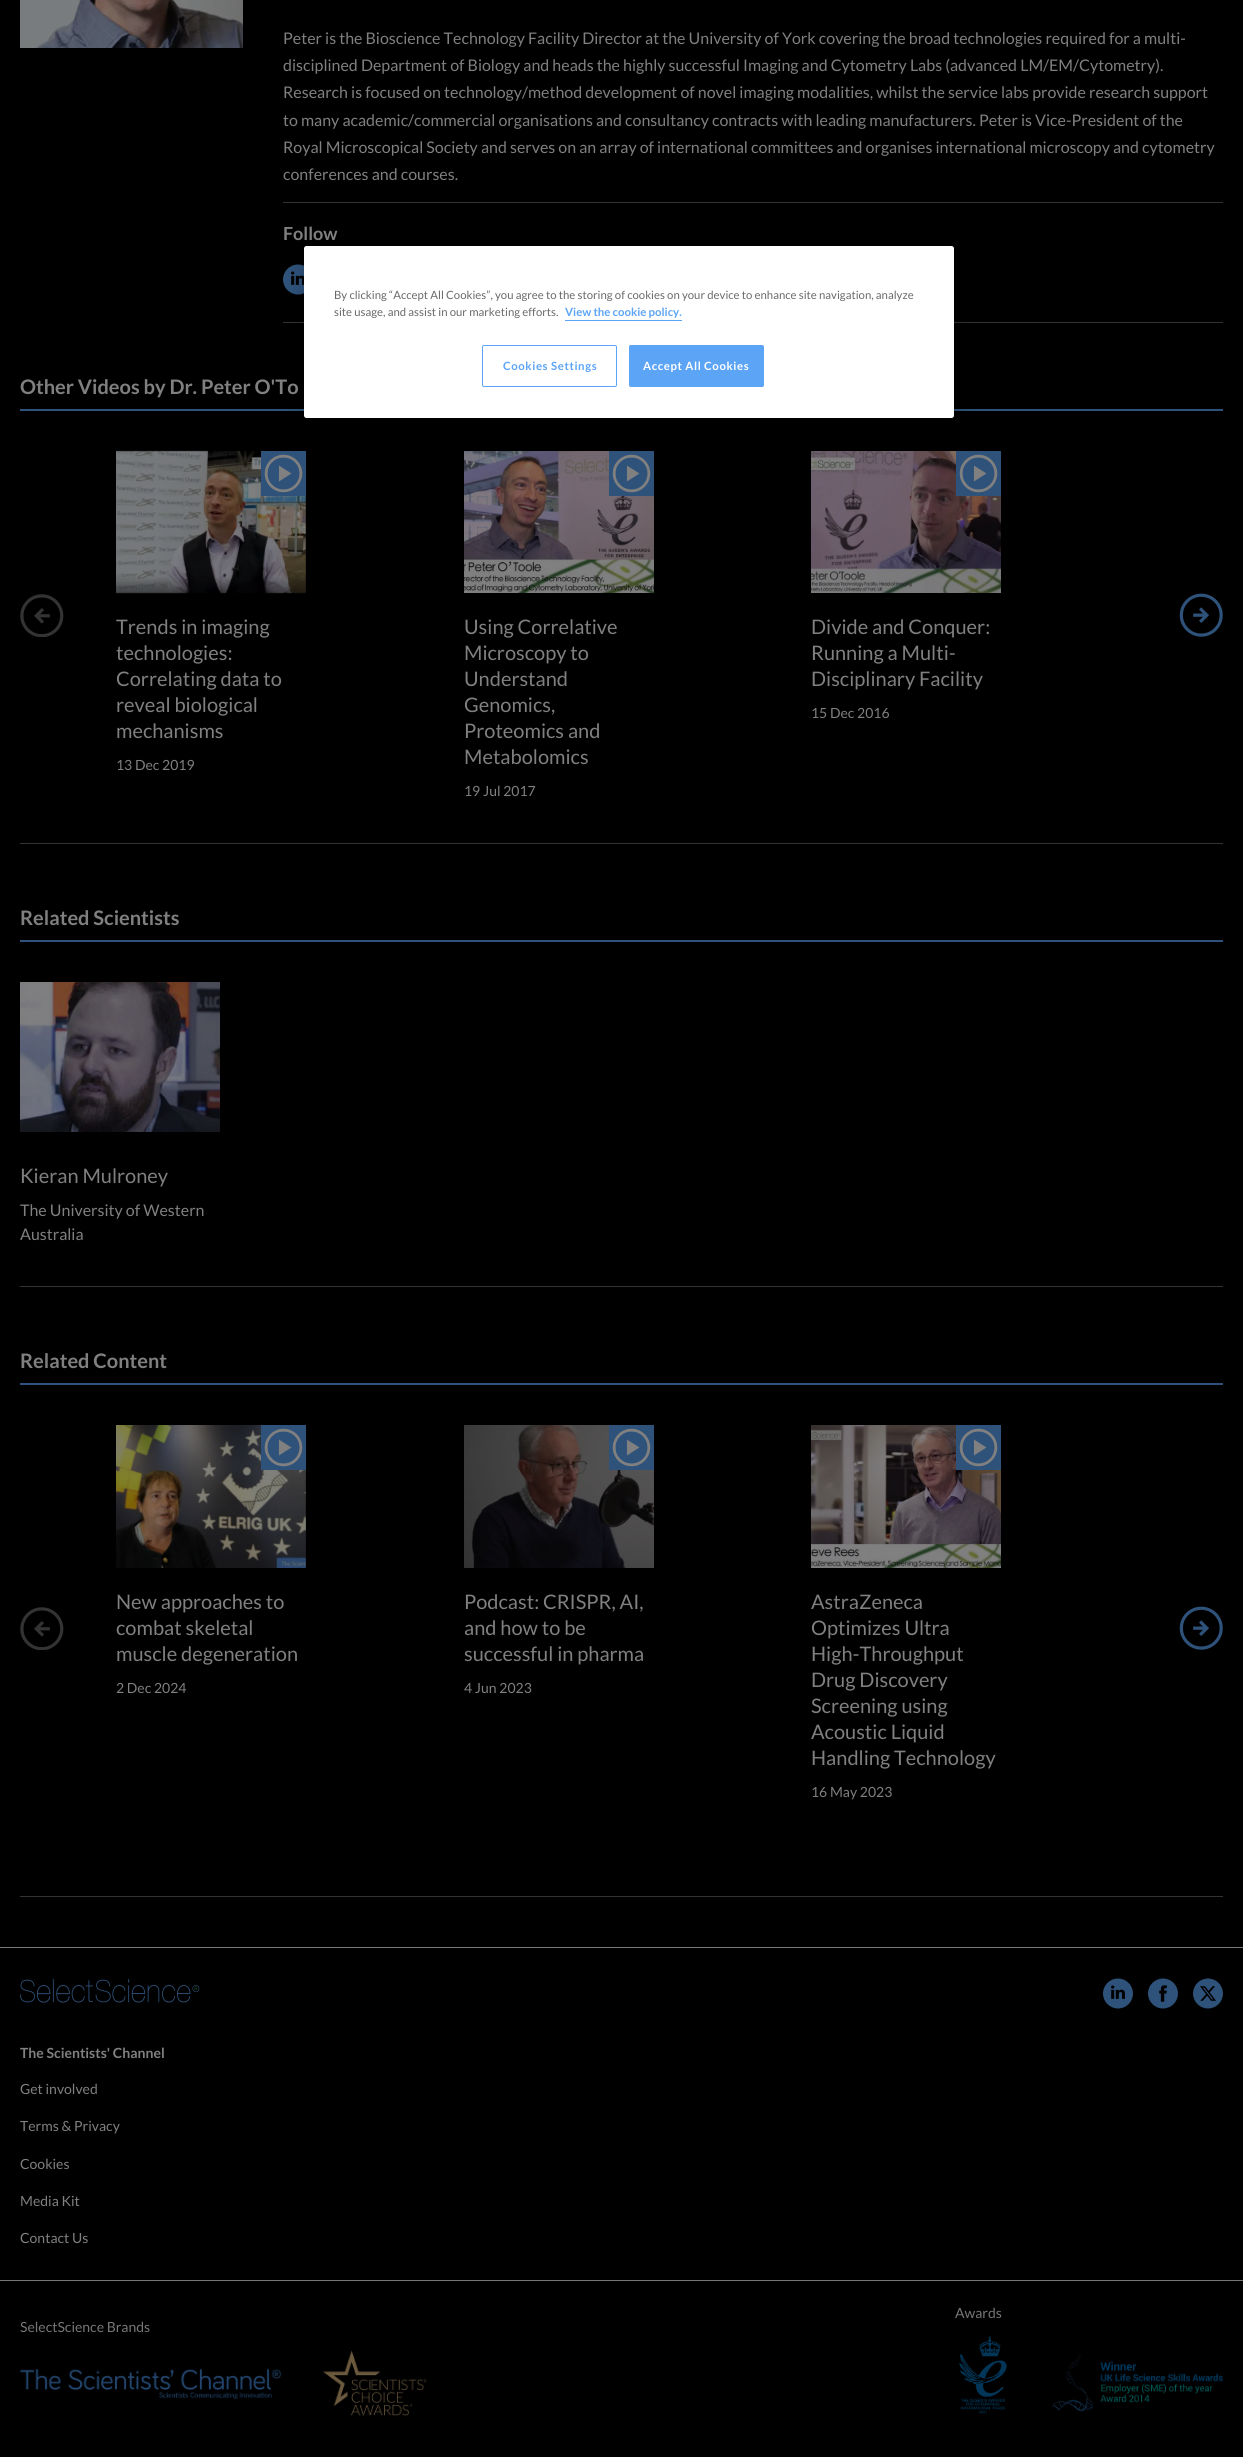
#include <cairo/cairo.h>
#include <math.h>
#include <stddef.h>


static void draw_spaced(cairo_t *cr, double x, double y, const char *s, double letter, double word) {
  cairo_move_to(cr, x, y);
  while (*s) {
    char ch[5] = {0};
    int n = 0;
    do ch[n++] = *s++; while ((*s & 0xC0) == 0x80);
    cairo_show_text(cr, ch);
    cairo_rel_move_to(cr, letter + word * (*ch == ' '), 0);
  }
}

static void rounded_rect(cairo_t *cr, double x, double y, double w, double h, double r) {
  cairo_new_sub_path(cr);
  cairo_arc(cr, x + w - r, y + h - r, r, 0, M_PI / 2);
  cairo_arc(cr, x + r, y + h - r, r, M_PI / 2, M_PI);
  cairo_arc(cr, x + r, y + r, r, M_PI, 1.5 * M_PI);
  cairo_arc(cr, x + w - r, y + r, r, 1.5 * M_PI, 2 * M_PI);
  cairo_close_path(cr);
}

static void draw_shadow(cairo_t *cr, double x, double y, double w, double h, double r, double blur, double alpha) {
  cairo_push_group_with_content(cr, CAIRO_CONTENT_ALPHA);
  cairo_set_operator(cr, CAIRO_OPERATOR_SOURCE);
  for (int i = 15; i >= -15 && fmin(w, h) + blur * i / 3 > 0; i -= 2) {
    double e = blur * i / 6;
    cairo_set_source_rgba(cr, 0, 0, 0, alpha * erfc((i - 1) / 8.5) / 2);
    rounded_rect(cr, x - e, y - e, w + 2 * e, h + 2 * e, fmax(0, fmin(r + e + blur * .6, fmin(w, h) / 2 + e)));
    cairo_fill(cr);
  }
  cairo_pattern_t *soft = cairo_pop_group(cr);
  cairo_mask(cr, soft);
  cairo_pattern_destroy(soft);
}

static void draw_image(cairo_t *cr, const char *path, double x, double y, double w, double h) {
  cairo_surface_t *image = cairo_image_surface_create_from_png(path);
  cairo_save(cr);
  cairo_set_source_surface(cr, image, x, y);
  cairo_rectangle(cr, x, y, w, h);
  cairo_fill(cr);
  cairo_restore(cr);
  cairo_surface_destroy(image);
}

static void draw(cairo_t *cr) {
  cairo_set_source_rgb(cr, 0, 0, 0);
  cairo_paint(cr);
  draw_image(cr, "images/1.png", 20, 0, 223, 48);
  cairo_set_source_rgb(cr, 51 / 255.0, 51 / 255.0, 51 / 255.0);
  cairo_rectangle(cr, 283, 322, 940, 1);
  cairo_fill(cr);
  cairo_rectangle(cr, 283, 202, 940, 1);
  cairo_fill(cr);
  draw_image(cr, "images/2.png", 283, 264, 21, 31);
  cairo_set_source_rgb(cr, 46 / 255.0, 82 / 255.0, 123 / 255.0);
  cairo_rectangle(cr, 20, 409, 1203, 2);
  cairo_fill(cr);
  cairo_set_source_rgb(cr, 51 / 255.0, 51 / 255.0, 51 / 255.0);
  cairo_rectangle(cr, 20, 843, 1203, 1);
  cairo_fill(cr);
  draw_image(cr, "images/3.png", 20, 594, 44, 43);
  draw_image(cr, "images/4.png", 1179, 593, 44, 44);
  draw_image(cr, "images/5.png", 116, 450, 190, 144);
  draw_image(cr, "images/6.png", 261, 451, 45, 45);
  draw_image(cr, "images/7.png", 464, 451, 190, 142);
  draw_image(cr, "images/6.png", 609, 451, 45, 45);
  draw_image(cr, "images/8.png", 811, 451, 190, 142);
  draw_image(cr, "images/6.png", 956, 451, 45, 45);
  cairo_set_source_rgb(cr, 46 / 255.0, 82 / 255.0, 123 / 255.0);
  cairo_rectangle(cr, 20, 940, 1203, 2);
  cairo_fill(cr);
  cairo_set_source_rgb(cr, 51 / 255.0, 51 / 255.0, 51 / 255.0);
  cairo_rectangle(cr, 20, 1286, 1203, 1);
  cairo_fill(cr);
  draw_image(cr, "images/9.png", 20, 982, 200, 150);
  cairo_set_source_rgb(cr, 46 / 255.0, 82 / 255.0, 123 / 255.0);
  cairo_rectangle(cr, 20, 1383, 1203, 2);
  cairo_fill(cr);
  cairo_set_source_rgb(cr, 51 / 255.0, 51 / 255.0, 51 / 255.0);
  cairo_rectangle(cr, 20, 1896, 1203, 1);
  cairo_fill(cr);
  draw_image(cr, "images/10.png", 116, 1425, 190, 143);
  draw_image(cr, "images/6.png", 261, 1425, 45, 45);
  draw_image(cr, "images/11.png", 464, 1425, 190, 143);
  draw_image(cr, "images/6.png", 609, 1425, 45, 45);
  draw_image(cr, "images/12.png", 811, 1425, 190, 143);
  draw_image(cr, "images/6.png", 956, 1425, 45, 45);
  draw_image(cr, "images/3.png", 20, 1607, 44, 43);
  draw_image(cr, "images/4.png", 1179, 1606, 44, 44);
  cairo_set_source_rgb(cr, 0, 0, 0);
  draw_shadow(cr, 304, 246, 650, 172, 2.5, 9, 0.2);
  cairo_set_source_rgb(cr, 1, 1, 1);
  rounded_rect(cr, 304, 246, 650, 172, 2.5);
  cairo_fill(cr);
  cairo_set_source_rgb(cr, 92 / 255.0, 164 / 255.0, 245 / 255.0);
  cairo_rectangle(cr, 565, 320, 117, 1);
  cairo_fill(cr);
  rounded_rect(cr, 482.5, 345.5, 134, 41, 1.5);
  cairo_set_line_width(cr, 1);
  cairo_stroke(cr);
  rounded_rect(cr, 629.5, 345.5, 134, 41, 1.5);
  cairo_fill_preserve(cr);
  cairo_stroke(cr);
  cairo_set_source_rgb(cr, 119 / 255.0, 119 / 255.0, 119 / 255.0);
  cairo_rectangle(cr, 0, 1947, 1243, 1);
  cairo_fill(cr);
  draw_image(cr, "images/13.png", 20, 1979, 180, 24);
  draw_image(cr, "images/14.png", 1103, 1978, 30, 31);
  draw_image(cr, "images/15.png", 1148, 1978, 30, 31);
  draw_image(cr, "images/16.png", 1193, 1978, 30, 31);
  cairo_rectangle(cr, 0, 2280, 1243, 1);
  cairo_fill(cr);
  draw_image(cr, "images/17.png", 959, 2336, 48, 78);
  draw_image(cr, "images/18.png", 1051, 2354, 172, 58);
  draw_image(cr, "images/19.png", 20, 2368, 261, 31);
  draw_image(cr, "images/20.png", 323, 2350, 104, 66);
  cairo_select_font_face(cr, "Lato", CAIRO_FONT_SLANT_NORMAL, CAIRO_FONT_WEIGHT_NORMAL);
  cairo_set_font_size(cr, 16);
  cairo_set_source_rgb(cr, 128 / 255.0, 128 / 255.0, 128 / 255.0);
  cairo_move_to(cr, 283, 44);
  cairo_show_text(cr, "Peter is the Bioscience Technology Facility Director at the University of York covering the broad technologies required for a multi-");
  cairo_move_to(cr, 283, 71);
  cairo_show_text(cr, "disciplined Department of Biology and heads the highly successful Imaging and Cytometry Labs (advanced LM/EM/Cytometry).");
  cairo_move_to(cr, 283, 98);
  cairo_show_text(cr, "Research is focused on technology/method development of novel imaging modalities, whilst the service labs provide research support");
  cairo_move_to(cr, 283, 126);
  cairo_show_text(cr, "to many academic/commercial organisations and consultancy contracts with leading manufacturers. Peter is Vice-President of the");
  cairo_move_to(cr, 283, 153);
  cairo_show_text(cr, "Royal Microscopical Society and serves on an array of international committees and organises international microscopy and cytometry");
  cairo_move_to(cr, 283, 180);
  cairo_show_text(cr, "conferences and courses.");
  cairo_select_font_face(cr, "Lato", CAIRO_FONT_SLANT_NORMAL, CAIRO_FONT_WEIGHT_BOLD);
  cairo_set_font_size(cr, 18);
  cairo_move_to(cr, 283, 240);
  cairo_show_text(cr, "Follow");
  cairo_set_font_size(cr, 20);
  cairo_move_to(cr, 20, 394);
  cairo_show_text(cr, "Other Videos by Dr. Peter O'To");
  cairo_select_font_face(cr, "Lato", CAIRO_FONT_SLANT_NORMAL, CAIRO_FONT_WEIGHT_NORMAL);
  cairo_move_to(cr, 116, 634);
  cairo_show_text(cr, "Trends in imaging");
  cairo_move_to(cr, 116, 660);
  cairo_show_text(cr, "technologies:");
  cairo_move_to(cr, 116, 686);
  cairo_show_text(cr, "Correlating data to");
  cairo_move_to(cr, 116, 712);
  cairo_show_text(cr, "reveal biological");
  cairo_move_to(cr, 116, 738);
  cairo_show_text(cr, "mechanisms");
  cairo_set_font_size(cr, 14);
  cairo_move_to(cr, 116, 770);
  cairo_show_text(cr, "13 Dec 2019");
  cairo_set_font_size(cr, 20);
  cairo_move_to(cr, 464, 634);
  cairo_show_text(cr, "Using Correlative");
  cairo_move_to(cr, 464, 660);
  cairo_show_text(cr, "Microscopy to");
  cairo_move_to(cr, 464, 686);
  cairo_show_text(cr, "Understand");
  cairo_move_to(cr, 464, 712);
  cairo_show_text(cr, "Genomics,");
  cairo_move_to(cr, 464, 738);
  cairo_show_text(cr, "Proteomics and");
  cairo_move_to(cr, 464, 764);
  cairo_show_text(cr, "Metabolomics");
  cairo_set_font_size(cr, 14);
  cairo_move_to(cr, 464, 796);
  cairo_show_text(cr, "19 Jul 2017");
  cairo_set_font_size(cr, 20);
  cairo_move_to(cr, 811, 634);
  cairo_show_text(cr, "Divide and Conquer:");
  cairo_move_to(cr, 811, 660);
  cairo_show_text(cr, "Running a Multi-");
  cairo_move_to(cr, 811, 686);
  cairo_show_text(cr, "Disciplinary Facility");
  cairo_set_font_size(cr, 14);
  cairo_move_to(cr, 811, 718);
  cairo_show_text(cr, "15 Dec 2016");
  cairo_select_font_face(cr, "Lato", CAIRO_FONT_SLANT_NORMAL, CAIRO_FONT_WEIGHT_BOLD);
  cairo_set_font_size(cr, 20);
  cairo_move_to(cr, 20, 925);
  cairo_show_text(cr, "Related Scientists");
  cairo_select_font_face(cr, "Lato", CAIRO_FONT_SLANT_NORMAL, CAIRO_FONT_WEIGHT_NORMAL);
  cairo_move_to(cr, 20, 1183);
  cairo_show_text(cr, "Kieran Mulroney");
  cairo_set_font_size(cr, 16);
  cairo_move_to(cr, 20, 1216);
  cairo_show_text(cr, "The University of Western");
  cairo_move_to(cr, 20, 1240);
  cairo_show_text(cr, "Australia");
  cairo_select_font_face(cr, "Lato", CAIRO_FONT_SLANT_NORMAL, CAIRO_FONT_WEIGHT_BOLD);
  cairo_set_font_size(cr, 20);
  cairo_move_to(cr, 20, 1368);
  cairo_show_text(cr, "Related Content");
  cairo_select_font_face(cr, "Lato", CAIRO_FONT_SLANT_NORMAL, CAIRO_FONT_WEIGHT_NORMAL);
  cairo_move_to(cr, 116, 1609);
  cairo_show_text(cr, "New approaches to");
  cairo_move_to(cr, 116, 1635);
  cairo_show_text(cr, "combat skeletal");
  cairo_move_to(cr, 116, 1661);
  cairo_show_text(cr, "muscle degeneration");
  cairo_set_font_size(cr, 14);
  cairo_move_to(cr, 116, 1693);
  cairo_show_text(cr, "2 Dec 2024");
  cairo_set_font_size(cr, 20);
  cairo_move_to(cr, 464, 1609);
  cairo_show_text(cr, "Podcast: CRISPR, AI,");
  cairo_move_to(cr, 464, 1635);
  cairo_show_text(cr, "and how to be");
  cairo_move_to(cr, 464, 1661);
  cairo_show_text(cr, "successful in pharma");
  cairo_set_font_size(cr, 14);
  cairo_move_to(cr, 464, 1693);
  cairo_show_text(cr, "4 Jun 2023");
  cairo_set_font_size(cr, 20);
  cairo_move_to(cr, 811, 1609);
  cairo_show_text(cr, "AstraZeneca");
  cairo_move_to(cr, 811, 1635);
  cairo_show_text(cr, "Optimizes Ultra");
  cairo_move_to(cr, 811, 1661);
  cairo_show_text(cr, "High-Throughput");
  cairo_move_to(cr, 811, 1687);
  cairo_show_text(cr, "Drug Discovery");
  cairo_move_to(cr, 811, 1713);
  cairo_show_text(cr, "Screening using");
  cairo_move_to(cr, 811, 1739);
  cairo_show_text(cr, "Acoustic Liquid");
  cairo_move_to(cr, 811, 1765);
  cairo_show_text(cr, "Handling Technology");
  cairo_set_font_size(cr, 14);
  cairo_move_to(cr, 811, 1797);
  cairo_show_text(cr, "16 May 2023");
  cairo_set_font_size(cr, 11.38);
  cairo_set_source_rgb(cr, 105 / 255.0, 105 / 255.0, 105 / 255.0);
  cairo_move_to(cr, 334, 299);
  cairo_show_text(cr, "By clicking “Accept All Cookies”, you agree to the storing of cookies on your device to enhance site navigation, analyze");
  cairo_move_to(cr, 334, 316);
  cairo_show_text(cr, "site usage, and assist in our marketing efforts.");
  cairo_select_font_face(cr, "Lato", CAIRO_FONT_SLANT_NORMAL, CAIRO_FONT_WEIGHT_BOLD);
  cairo_set_source_rgb(cr, 92 / 255.0, 164 / 255.0, 245 / 255.0);
  cairo_move_to(cr, 565, 316);
  cairo_show_text(cr, "View the cookie policy.");
  draw_spaced(cr, 503, 370, "Cookies Settings", 0.6, 0);
  cairo_set_source_rgb(cr, 1, 1, 1);
  draw_spaced(cr, 643, 370, "Accept All Cookies", 0.6, 0);
  cairo_set_font_size(cr, 14);
  cairo_set_source_rgb(cr, 128 / 255.0, 128 / 255.0, 128 / 255.0);
  cairo_move_to(cr, 20, 2058);
  cairo_show_text(cr, "The Scientists' Channel");
  cairo_select_font_face(cr, "Lato", CAIRO_FONT_SLANT_NORMAL, CAIRO_FONT_WEIGHT_NORMAL);
  cairo_move_to(cr, 20, 2094);
  cairo_show_text(cr, "Get involved");
  cairo_move_to(cr, 20, 2131);
  cairo_show_text(cr, "Terms & Privacy");
  cairo_move_to(cr, 20, 2169);
  cairo_show_text(cr, "Cookies");
  cairo_move_to(cr, 20, 2206);
  cairo_show_text(cr, "Media Kit");
  cairo_move_to(cr, 20, 2243);
  cairo_show_text(cr, "Contact Us");
  cairo_set_source_rgb(cr, 119 / 255.0, 119 / 255.0, 119 / 255.0);
  cairo_move_to(cr, 955, 2318);
  cairo_show_text(cr, "Awards");
  cairo_move_to(cr, 20, 2332);
  cairo_show_text(cr, "SelectScience Brands");
}

int main(void) {
  cairo_surface_t *surface = cairo_image_surface_create(CAIRO_FORMAT_RGB24, 1243, 2457);
  cairo_t *cr = cairo_create(surface);
  cairo_font_options_t *options = cairo_font_options_create();
  cairo_font_options_set_hint_metrics(options, CAIRO_HINT_METRICS_OFF);
  cairo_font_options_set_hint_style(options, CAIRO_HINT_STYLE_NONE);
  cairo_set_font_options(cr, options);
  cairo_set_miter_limit(cr, 4);
  draw(cr);
  cairo_surface_write_to_png(surface, "out.png");
  cairo_font_options_destroy(options);
  cairo_destroy(cr);
  cairo_surface_destroy(surface);
  return 0;
}
